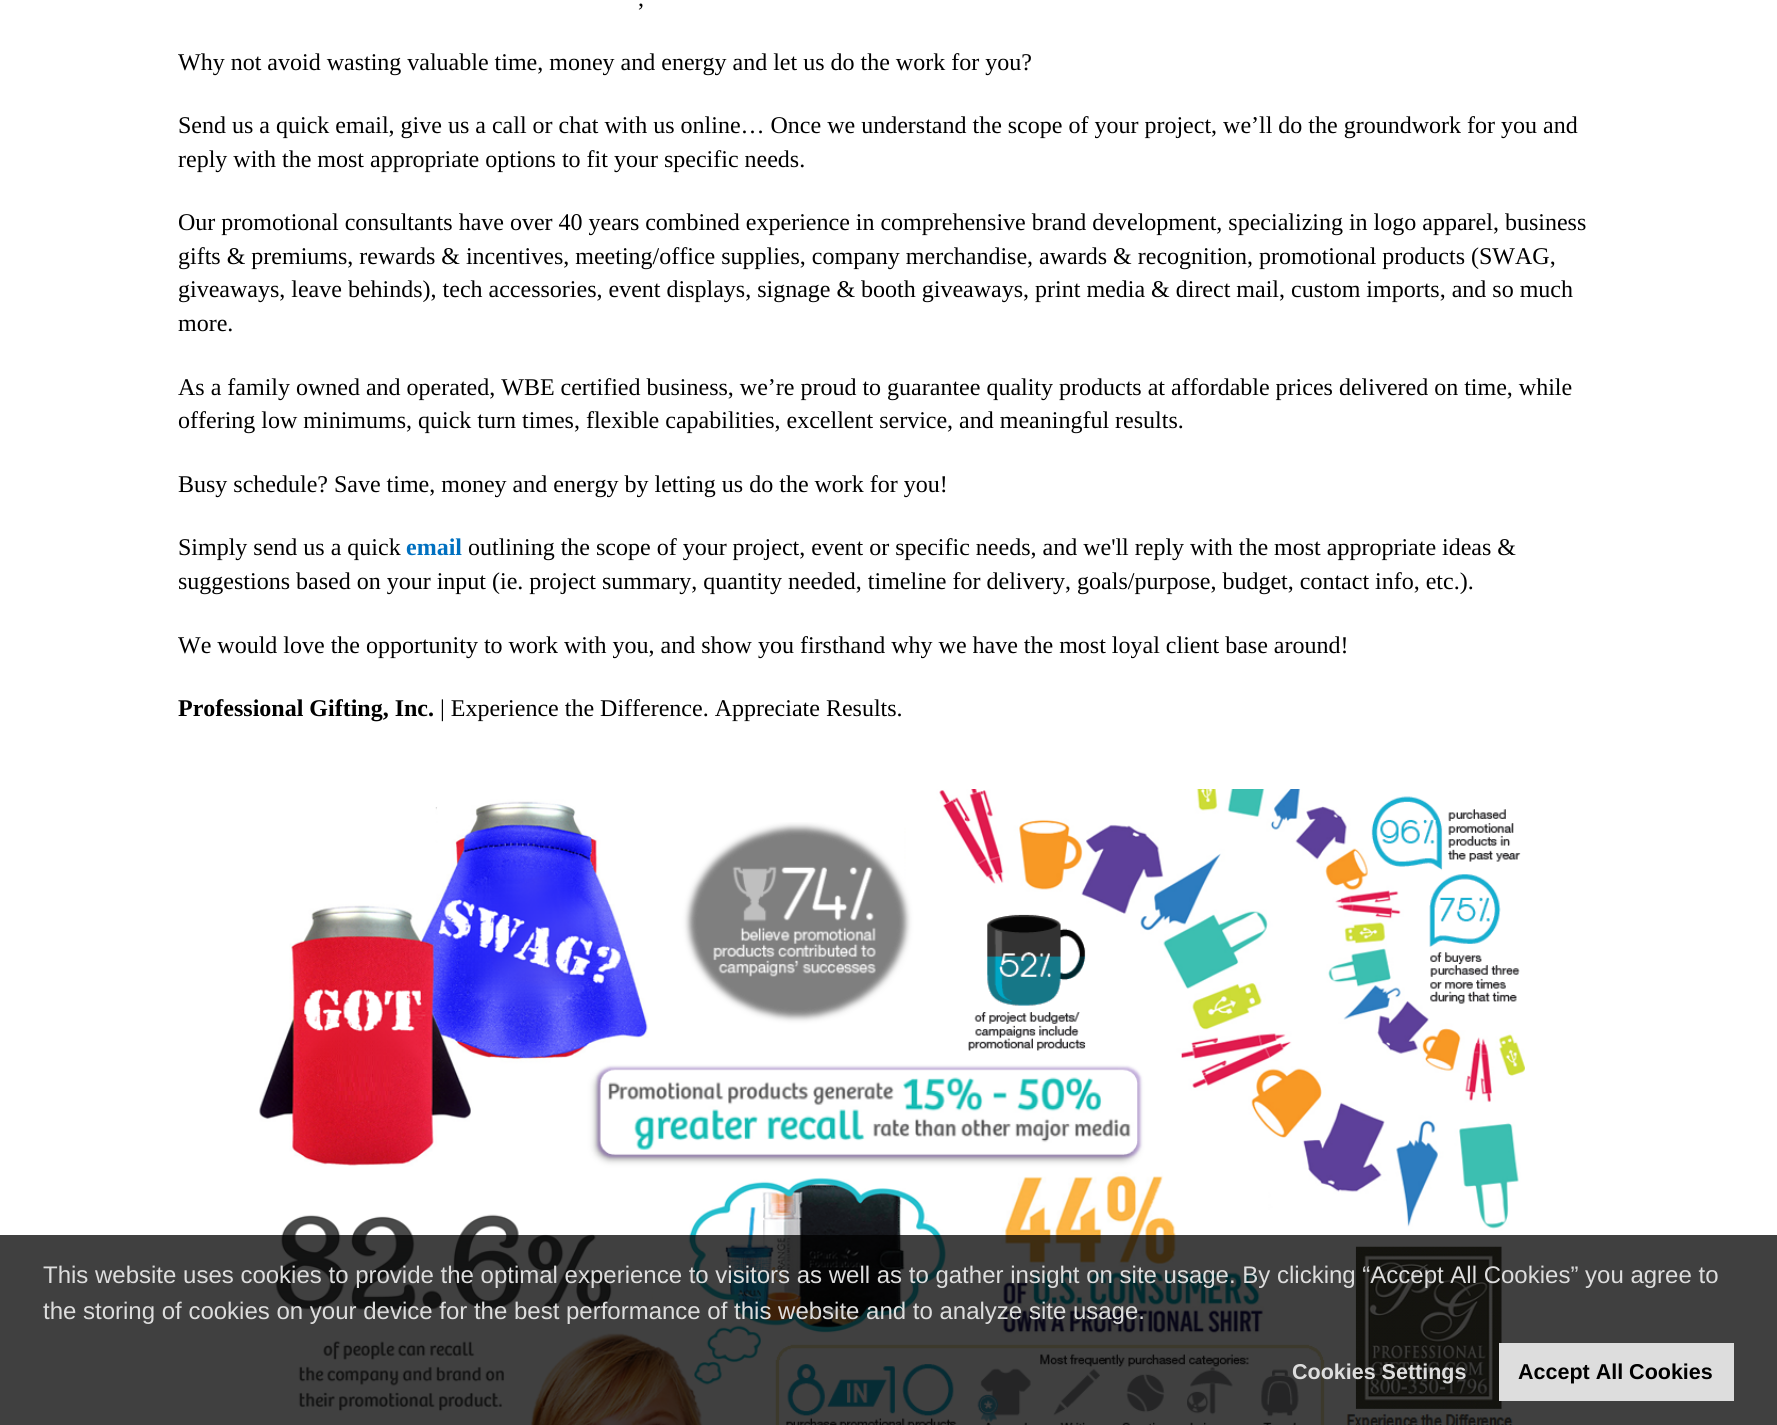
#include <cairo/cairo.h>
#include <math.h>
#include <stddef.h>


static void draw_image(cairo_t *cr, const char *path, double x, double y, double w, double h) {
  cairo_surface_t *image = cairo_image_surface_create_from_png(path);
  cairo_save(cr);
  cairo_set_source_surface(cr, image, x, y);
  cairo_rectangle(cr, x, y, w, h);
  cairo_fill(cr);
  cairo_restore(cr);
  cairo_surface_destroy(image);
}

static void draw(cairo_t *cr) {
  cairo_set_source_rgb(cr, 1, 1, 1);
  cairo_paint(cr);
  draw_image(cr, "images/1.png", 259, 789, 1266, 636);
  cairo_set_source_rgba(cr, 0, 0, 0, 0.75);
  cairo_rectangle(cr, 0, 1235, 1777, 190);
  cairo_fill(cr);
  cairo_set_source_rgb(cr, 221 / 255.0, 221 / 255.0, 221 / 255.0);
  cairo_rectangle(cr, 1499, 1343, 235, 58);
  cairo_fill(cr);
  cairo_select_font_face(cr, "Liberation Serif", CAIRO_FONT_SLANT_NORMAL, CAIRO_FONT_WEIGHT_NORMAL);
  cairo_set_font_size(cr, 24);
  cairo_set_source_rgb(cr, 0, 0, 0);
  cairo_move_to(cr, 638, 6);
  cairo_show_text(cr, ",");
  cairo_move_to(cr, 178, 70);
  cairo_show_text(cr, "Why not avoid wasting valuable time, money and energy and let us do the work for you?");
  cairo_move_to(cr, 178, 133);
  cairo_show_text(cr, "Send us a quick email, give us a call or chat with us online… Once we understand the scope of your project, we’ll do the groundwork for you and");
  cairo_move_to(cr, 178, 167);
  cairo_show_text(cr, "reply with the most appropriate options to fit your specific needs.");
  cairo_move_to(cr, 178, 230);
  cairo_show_text(cr, "Our promotional consultants have over 40 years combined experience in comprehensive brand development, specializing in logo apparel, business");
  cairo_move_to(cr, 178, 264);
  cairo_show_text(cr, "gifts & premiums, rewards & incentives, meeting/office supplies, company merchandise, awards & recognition, promotional products (SWAG,");
  cairo_move_to(cr, 178, 297);
  cairo_show_text(cr, "giveaways, leave behinds), tech accessories, event displays, signage & booth giveaways, print media & direct mail, custom imports, and so much");
  cairo_move_to(cr, 178, 331);
  cairo_show_text(cr, "more.");
  cairo_move_to(cr, 178, 395);
  cairo_show_text(cr, "As a family owned and operated, WBE certified business, we’re proud to guarantee quality products at affordable prices delivered on time, while");
  cairo_move_to(cr, 178, 428);
  cairo_show_text(cr, "offering low minimums, quick turn times, flexible capabilities, excellent service, and meaningful results.");
  cairo_move_to(cr, 178, 492);
  cairo_show_text(cr, "Busy schedule? Save time, money and energy by letting us do the work for you!");
  cairo_move_to(cr, 178, 555);
  cairo_show_text(cr, "Simply send us a quick");
  cairo_select_font_face(cr, "Liberation Serif", CAIRO_FONT_SLANT_NORMAL, CAIRO_FONT_WEIGHT_BOLD);
  cairo_set_source_rgb(cr, 0, 112 / 255.0, 192 / 255.0);
  cairo_move_to(cr, 406, 555);
  cairo_show_text(cr, "email");
  cairo_select_font_face(cr, "Liberation Serif", CAIRO_FONT_SLANT_NORMAL, CAIRO_FONT_WEIGHT_NORMAL);
  cairo_set_source_rgb(cr, 0, 0, 0);
  cairo_move_to(cr, 468, 555);
  cairo_show_text(cr, "outlining the scope of your project, event or specific needs, and we'll reply with the most appropriate ideas &");
  cairo_move_to(cr, 178, 589);
  cairo_show_text(cr, "suggestions based on your input (ie. project summary, quantity needed, timeline for delivery, goals/purpose, budget, contact info, etc.).");
  cairo_move_to(cr, 178, 653);
  cairo_show_text(cr, "We would love the opportunity to work with you, and show you firsthand why we have the most loyal client base around!");
  cairo_select_font_face(cr, "Liberation Serif", CAIRO_FONT_SLANT_NORMAL, CAIRO_FONT_WEIGHT_BOLD);
  cairo_move_to(cr, 178, 716);
  cairo_show_text(cr, "Professional Gifting, Inc.");
  cairo_select_font_face(cr, "Liberation Serif", CAIRO_FONT_SLANT_NORMAL, CAIRO_FONT_WEIGHT_NORMAL);
  cairo_move_to(cr, 440, 716);
  cairo_show_text(cr, "| Experience the Difference. Appreciate Results.");
  cairo_select_font_face(cr, "Liberation Sans", CAIRO_FONT_SLANT_NORMAL, CAIRO_FONT_WEIGHT_NORMAL);
  cairo_set_source_rgb(cr, 221 / 255.0, 221 / 255.0, 221 / 255.0);
  cairo_move_to(cr, 43, 1283);
  cairo_show_text(cr, "This website uses cookies to provide the optimal experience to visitors as well as to gather insight on site usage. By clicking “Accept All Cookies” you agree to");
  cairo_move_to(cr, 43, 1319);
  cairo_show_text(cr, "the storing of cookies on your device for the best performance of this website and to analyze site usage.");
  cairo_select_font_face(cr, "Liberation Sans", CAIRO_FONT_SLANT_NORMAL, CAIRO_FONT_WEIGHT_BOLD);
  cairo_set_font_size(cr, 21.5);
  cairo_move_to(cr, 1292, 1379);
  cairo_show_text(cr, "Cookies Settings");
  cairo_set_source_rgb(cr, 0, 0, 0);
  cairo_move_to(cr, 1518, 1379);
  cairo_show_text(cr, "Accept All Cookies");
}

int main(void) {
  cairo_surface_t *surface = cairo_image_surface_create(CAIRO_FORMAT_RGB24, 1777, 1425);
  cairo_t *cr = cairo_create(surface);
  cairo_font_options_t *options = cairo_font_options_create();
  cairo_font_options_set_hint_metrics(options, CAIRO_HINT_METRICS_OFF);
  cairo_font_options_set_hint_style(options, CAIRO_HINT_STYLE_NONE);
  cairo_set_font_options(cr, options);
  cairo_set_miter_limit(cr, 4);
  draw(cr);
  cairo_surface_write_to_png(surface, "out.png");
  cairo_font_options_destroy(options);
  cairo_destroy(cr);
  cairo_surface_destroy(surface);
  return 0;
}
